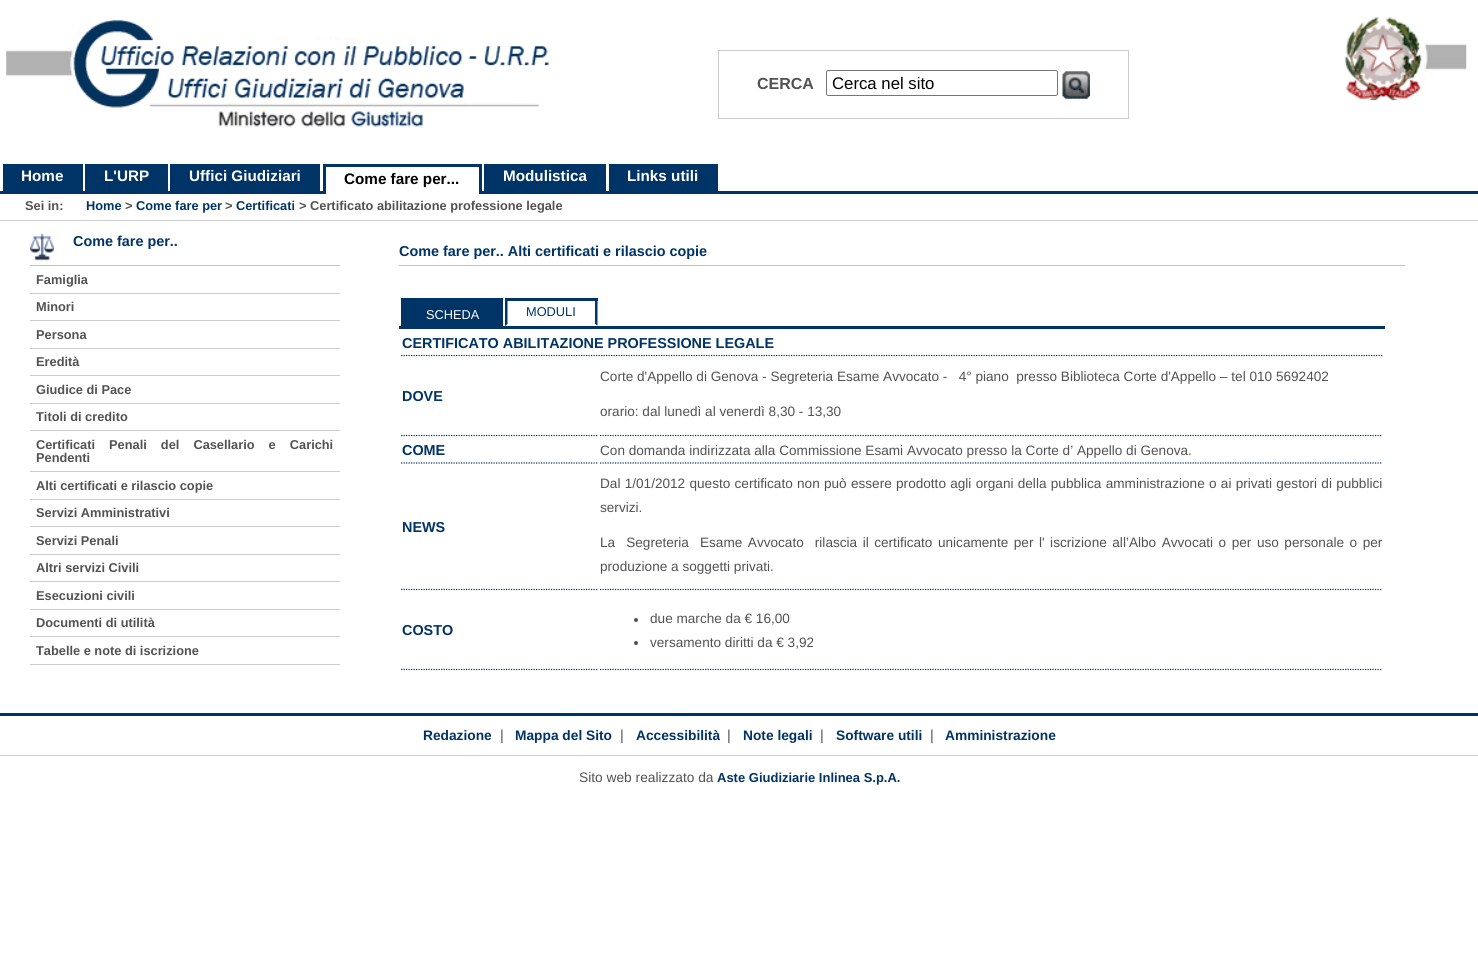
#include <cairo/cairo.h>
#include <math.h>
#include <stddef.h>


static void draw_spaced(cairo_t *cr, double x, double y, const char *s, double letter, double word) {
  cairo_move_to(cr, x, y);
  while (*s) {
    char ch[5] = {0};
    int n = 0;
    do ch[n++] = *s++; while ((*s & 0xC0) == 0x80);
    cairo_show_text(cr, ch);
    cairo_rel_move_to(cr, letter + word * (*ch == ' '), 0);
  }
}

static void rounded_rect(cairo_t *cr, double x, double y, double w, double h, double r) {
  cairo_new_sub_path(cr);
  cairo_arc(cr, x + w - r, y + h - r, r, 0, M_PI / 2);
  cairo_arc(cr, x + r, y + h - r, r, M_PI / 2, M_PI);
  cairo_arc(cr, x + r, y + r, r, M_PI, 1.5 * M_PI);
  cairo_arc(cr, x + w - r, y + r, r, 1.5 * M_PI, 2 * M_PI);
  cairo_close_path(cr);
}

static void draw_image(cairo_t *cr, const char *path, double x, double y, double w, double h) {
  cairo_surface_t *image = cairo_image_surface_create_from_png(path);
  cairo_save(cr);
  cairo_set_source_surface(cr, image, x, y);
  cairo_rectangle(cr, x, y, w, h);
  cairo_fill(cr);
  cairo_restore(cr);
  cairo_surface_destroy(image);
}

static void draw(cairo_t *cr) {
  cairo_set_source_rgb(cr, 1, 1, 1);
  cairo_paint(cr);
  cairo_set_source_rgb(cr, 0, 51 / 255.0, 102 / 255.0);
  cairo_rectangle(cr, 0, 191, 1478, 3);
  cairo_fill(cr);
  draw_image(cr, "images/1.png", 6, 19, 543, 108);
  cairo_rectangle(cr, 718.5, 50.5, 410, 68);
  cairo_set_source_rgb(cr, 204 / 255.0, 204 / 255.0, 204 / 255.0);
  cairo_set_line_width(cr, 1);
  cairo_stroke(cr);
  rounded_rect(cr, 826.5, 70.5, 231, 25, 2);
  cairo_set_source_rgb(cr, 118 / 255.0, 118 / 255.0, 118 / 255.0);
  cairo_stroke(cr);
  draw_image(cr, "images/2.png", 1062, 71, 28, 28);
  draw_image(cr, "images/3.png", 1344, 17, 123, 84);
  cairo_set_source_rgb(cr, 0, 51 / 255.0, 102 / 255.0);
  cairo_rectangle(cr, 3, 164, 80, 27);
  cairo_fill(cr);
  cairo_rectangle(cr, 85, 164, 83, 27);
  cairo_fill(cr);
  cairo_rectangle(cr, 170, 164, 150, 27);
  cairo_fill(cr);
  cairo_set_source_rgb(cr, 1, 1, 1);
  cairo_rectangle(cr, 326, 191, 153, 3);
  cairo_fill(cr);
  cairo_set_source_rgb(cr, 0, 51 / 255.0, 102 / 255.0);
  cairo_rectangle(cr, 323, 164, 158, 3);
  cairo_fill(cr);
  cairo_rectangle(cr, 479, 164, 3, 30);
  cairo_fill(cr);
  cairo_rectangle(cr, 323, 164, 3, 30);
  cairo_fill(cr);
  cairo_rectangle(cr, 484, 164, 122, 27);
  cairo_fill(cr);
  cairo_rectangle(cr, 609, 164, 109, 27);
  cairo_fill(cr);
  cairo_set_source_rgb(cr, 204 / 255.0, 204 / 255.0, 204 / 255.0);
  cairo_rectangle(cr, 0, 220, 1478, 1);
  cairo_fill(cr);
  draw_image(cr, "images/4.png", 30, 233, 24, 28);
  cairo_set_source_rgb(cr, 191 / 255.0, 195 / 255.0, 195 / 255.0);
  cairo_rectangle(cr, 30, 265, 310, 1);
  cairo_fill(cr);
  cairo_set_source_rgb(cr, 204 / 255.0, 204 / 255.0, 204 / 255.0);
  cairo_rectangle(cr, 30, 293, 310, 1);
  cairo_fill(cr);
  cairo_rectangle(cr, 30, 320, 310, 1);
  cairo_fill(cr);
  cairo_rectangle(cr, 30, 348, 310, 1);
  cairo_fill(cr);
  cairo_rectangle(cr, 30, 375, 310, 1);
  cairo_fill(cr);
  cairo_rectangle(cr, 30, 403, 310, 1);
  cairo_fill(cr);
  cairo_rectangle(cr, 30, 430, 310, 1);
  cairo_fill(cr);
  cairo_rectangle(cr, 30, 471, 310, 1);
  cairo_fill(cr);
  cairo_rectangle(cr, 30, 499, 310, 1);
  cairo_fill(cr);
  cairo_rectangle(cr, 30, 526, 310, 1);
  cairo_fill(cr);
  cairo_rectangle(cr, 30, 554, 310, 1);
  cairo_fill(cr);
  cairo_rectangle(cr, 30, 581, 310, 1);
  cairo_fill(cr);
  cairo_rectangle(cr, 30, 609, 310, 1);
  cairo_fill(cr);
  cairo_rectangle(cr, 30, 636, 310, 1);
  cairo_fill(cr);
  cairo_rectangle(cr, 30, 664, 310, 1);
  cairo_fill(cr);
  cairo_set_source_rgb(cr, 191 / 255.0, 195 / 255.0, 195 / 255.0);
  cairo_rectangle(cr, 399, 265, 1006, 1);
  cairo_fill(cr);
  cairo_set_source_rgb(cr, 0, 51 / 255.0, 102 / 255.0);
  cairo_rectangle(cr, 399, 326, 986, 3);
  cairo_fill(cr);
  cairo_rectangle(cr, 401, 298, 102, 28);
  cairo_fill(cr);
  cairo_rectangle(cr, 505, 298, 93, 3);
  cairo_fill(cr);
  cairo_new_path(cr);
  cairo_move_to(cr, 597.5, 297.5);
  cairo_line_to(cr, 597.5, 326);
  cairo_line_to(cr, 595, 324);
  cairo_line_to(cr, 595, 300);
  cairo_close_path(cr);
  cairo_fill(cr);
  cairo_set_source_rgb(cr, 1, 1, 1);
  cairo_new_path(cr);
  cairo_move_to(cr, 598, 326);
  cairo_line_to(cr, 505, 326);
  cairo_line_to(cr, 508, 324);
  cairo_line_to(cr, 595, 324);
  cairo_close_path(cr);
  cairo_fill(cr);
  cairo_set_source_rgb(cr, 0, 51 / 255.0, 102 / 255.0);
  cairo_new_path(cr);
  cairo_move_to(cr, 505, 326);
  cairo_line_to(cr, 505, 297.5);
  cairo_line_to(cr, 507.5, 300);
  cairo_line_to(cr, 507.5, 324);
  cairo_close_path(cr);
  cairo_fill(cr);
  cairo_new_path(cr);
  cairo_move_to(cr, 401, 355.5);
  cairo_line_to(cr, 1382.5, 355.5);
  cairo_set_line_width(cr, 1.2);
  cairo_set_dash(cr, (double[]){1.25, 1.25}, 2, 0);
  cairo_stroke(cr);
  cairo_new_path(cr);
  cairo_move_to(cr, 401, 435.5);
  cairo_line_to(cr, 597.5, 435.5);
  cairo_stroke(cr);
  cairo_new_path(cr);
  cairo_move_to(cr, 600, 435.5);
  cairo_line_to(cr, 1382.5, 435.5);
  cairo_stroke(cr);
  cairo_new_path(cr);
  cairo_move_to(cr, 401, 463);
  cairo_line_to(cr, 597.5, 463);
  cairo_stroke(cr);
  cairo_new_path(cr);
  cairo_move_to(cr, 600, 463);
  cairo_line_to(cr, 1382.5, 463);
  cairo_stroke(cr);
  cairo_new_path(cr);
  cairo_move_to(cr, 401, 589.5);
  cairo_line_to(cr, 597.5, 589.5);
  cairo_stroke(cr);
  cairo_new_path(cr);
  cairo_move_to(cr, 600, 589.5);
  cairo_line_to(cr, 1382.5, 589.5);
  cairo_stroke(cr);
  cairo_new_path(cr);
  cairo_move_to(cr, 401, 669.5);
  cairo_line_to(cr, 597.5, 669.5);
  cairo_stroke(cr);
  cairo_new_path(cr);
  cairo_move_to(cr, 600, 669.5);
  cairo_line_to(cr, 1382.5, 669.5);
  cairo_stroke(cr);
  cairo_set_source_rgb(cr, 82 / 255.0, 82 / 255.0, 82 / 255.0);
  cairo_arc(cr, 636, 620, 2, 0, 2 * M_PI);
  cairo_fill(cr);
  cairo_arc(cr, 636, 643, 2, 0, 2 * M_PI);
  cairo_fill(cr);
  cairo_set_source_rgb(cr, 0, 51 / 255.0, 102 / 255.0);
  cairo_rectangle(cr, 0, 713, 1478, 3);
  cairo_fill(cr);
  cairo_set_source_rgb(cr, 206 / 255.0, 206 / 255.0, 206 / 255.0);
  cairo_rectangle(cr, 0, 755, 1478, 1);
  cairo_fill(cr);
  cairo_select_font_face(cr, "Liberation Sans", CAIRO_FONT_SLANT_NORMAL, CAIRO_FONT_WEIGHT_BOLD);
  cairo_set_font_size(cr, 16);
  cairo_set_source_rgb(cr, 82 / 255.0, 82 / 255.0, 82 / 255.0);
  cairo_move_to(cr, 757, 89);
  cairo_show_text(cr, "CERCA");
  cairo_select_font_face(cr, "Liberation Sans", CAIRO_FONT_SLANT_NORMAL, CAIRO_FONT_WEIGHT_NORMAL);
  cairo_set_font_size(cr, 16.75);
  cairo_set_source_rgb(cr, 0, 0, 0);
  cairo_move_to(cr, 832, 89);
  cairo_show_text(cr, "Cerca nel sito");
  cairo_select_font_face(cr, "Liberation Sans", CAIRO_FONT_SLANT_NORMAL, CAIRO_FONT_WEIGHT_BOLD);
  cairo_set_font_size(cr, 15.25);
  cairo_set_source_rgb(cr, 1, 1, 1);
  cairo_move_to(cr, 21, 181);
  cairo_show_text(cr, "Home");
  cairo_move_to(cr, 104, 181);
  cairo_show_text(cr, "L'URP");
  cairo_move_to(cr, 189, 181);
  cairo_show_text(cr, "Uffici Giudiziari");
  cairo_set_source_rgb(cr, 0, 0, 0);
  cairo_move_to(cr, 344, 184);
  cairo_show_text(cr, "Come fare per...");
  cairo_set_source_rgb(cr, 1, 1, 1);
  cairo_move_to(cr, 503, 181);
  cairo_show_text(cr, "Modulistica");
  cairo_move_to(cr, 627, 181);
  cairo_show_text(cr, "Links utili");
  cairo_set_font_size(cr, 12.8);
  cairo_set_source_rgb(cr, 82 / 255.0, 82 / 255.0, 82 / 255.0);
  cairo_move_to(cr, 25, 210);
  cairo_show_text(cr, "Sei in:");
  cairo_set_source_rgb(cr, 0, 51 / 255.0, 102 / 255.0);
  cairo_move_to(cr, 86, 210);
  cairo_show_text(cr, "Home");
  cairo_set_source_rgb(cr, 82 / 255.0, 82 / 255.0, 82 / 255.0);
  cairo_move_to(cr, 125, 210);
  cairo_show_text(cr, ">");
  cairo_set_source_rgb(cr, 0, 51 / 255.0, 102 / 255.0);
  cairo_move_to(cr, 136, 210);
  cairo_show_text(cr, "Come fare per");
  cairo_set_source_rgb(cr, 82 / 255.0, 82 / 255.0, 82 / 255.0);
  cairo_move_to(cr, 225, 210);
  cairo_show_text(cr, ">");
  cairo_set_source_rgb(cr, 0, 51 / 255.0, 102 / 255.0);
  cairo_move_to(cr, 236, 210);
  cairo_show_text(cr, "Certificati");
  cairo_set_source_rgb(cr, 82 / 255.0, 82 / 255.0, 82 / 255.0);
  cairo_move_to(cr, 299, 210);
  cairo_show_text(cr, "> Certificato abilitazione professione legale");
  cairo_set_font_size(cr, 14.4);
  cairo_set_source_rgb(cr, 0, 51 / 255.0, 102 / 255.0);
  cairo_move_to(cr, 73, 246);
  cairo_show_text(cr, "Come fare per..");
  cairo_set_font_size(cr, 12.8);
  cairo_set_source_rgb(cr, 82 / 255.0, 82 / 255.0, 82 / 255.0);
  cairo_move_to(cr, 36, 284);
  cairo_show_text(cr, "Famiglia");
  cairo_move_to(cr, 36, 311);
  cairo_show_text(cr, "Minori");
  cairo_move_to(cr, 36, 339);
  cairo_show_text(cr, "Persona");
  cairo_move_to(cr, 36, 366);
  cairo_show_text(cr, "Eredità");
  cairo_move_to(cr, 36, 394);
  cairo_show_text(cr, "Giudice di Pace");
  cairo_move_to(cr, 36, 421);
  cairo_show_text(cr, "Titoli di credito");
  draw_spaced(cr, 36, 449, "Certificati Penali del Casellario e Carichi", 0, 10.5);
  cairo_move_to(cr, 36, 462);
  cairo_show_text(cr, "Pendenti");
  cairo_move_to(cr, 36, 490);
  cairo_show_text(cr, "Alti certificati e rilascio copie");
  cairo_move_to(cr, 36, 517);
  cairo_show_text(cr, "Servizi Amministrativi");
  cairo_move_to(cr, 36, 545);
  cairo_show_text(cr, "Servizi Penali");
  cairo_move_to(cr, 36, 572);
  cairo_show_text(cr, "Altri servizi Civili");
  cairo_move_to(cr, 36, 600);
  cairo_show_text(cr, "Esecuzioni civili");
  cairo_move_to(cr, 36, 627);
  cairo_show_text(cr, "Documenti di utilità");
  cairo_move_to(cr, 36, 655);
  cairo_show_text(cr, "Tabelle e note di iscrizione");
  cairo_set_font_size(cr, 14.4);
  cairo_set_source_rgb(cr, 0, 51 / 255.0, 102 / 255.0);
  cairo_move_to(cr, 399, 256);
  cairo_show_text(cr, "Come fare per.. Alti certificati e rilascio copie");
  cairo_select_font_face(cr, "Liberation Sans", CAIRO_FONT_SLANT_NORMAL, CAIRO_FONT_WEIGHT_NORMAL);
  cairo_set_font_size(cr, 12.8);
  cairo_set_source_rgb(cr, 1, 1, 1);
  cairo_move_to(cr, 426, 319);
  cairo_show_text(cr, "SCHEDA");
  cairo_set_source_rgb(cr, 0, 51 / 255.0, 102 / 255.0);
  cairo_move_to(cr, 526, 316);
  cairo_show_text(cr, "MODULI");
  cairo_select_font_face(cr, "Liberation Sans", CAIRO_FONT_SLANT_NORMAL, CAIRO_FONT_WEIGHT_BOLD);
  cairo_set_font_size(cr, 14.4);
  cairo_move_to(cr, 402, 348);
  cairo_show_text(cr, "CERTIFICATO ABILITAZIONE PROFESSIONE LEGALE");
  cairo_move_to(cr, 402, 401);
  cairo_show_text(cr, "DOVE");
  cairo_select_font_face(cr, "Liberation Sans", CAIRO_FONT_SLANT_NORMAL, CAIRO_FONT_WEIGHT_NORMAL);
  cairo_set_font_size(cr, 13.6);
  cairo_set_source_rgb(cr, 82 / 255.0, 82 / 255.0, 82 / 255.0);
  cairo_move_to(cr, 600, 381);
  cairo_show_text(cr, "Corte d'Appello di Genova - Segreteria Esame Avvocato -   4° piano  presso Biblioteca Corte d'Appello – tel 010 5692402");
  cairo_move_to(cr, 600, 416);
  cairo_show_text(cr, "orario: dal lunedì al venerdì 8,30 - 13,30");
  cairo_select_font_face(cr, "Liberation Sans", CAIRO_FONT_SLANT_NORMAL, CAIRO_FONT_WEIGHT_BOLD);
  cairo_set_font_size(cr, 14.4);
  cairo_set_source_rgb(cr, 0, 51 / 255.0, 102 / 255.0);
  cairo_move_to(cr, 402, 455);
  cairo_show_text(cr, "COME");
  cairo_select_font_face(cr, "Liberation Sans", CAIRO_FONT_SLANT_NORMAL, CAIRO_FONT_WEIGHT_NORMAL);
  cairo_set_font_size(cr, 13.6);
  cairo_set_source_rgb(cr, 82 / 255.0, 82 / 255.0, 82 / 255.0);
  cairo_move_to(cr, 600, 455);
  cairo_show_text(cr, "Con domanda indirizzata alla Commissione Esami Avvocato presso la Corte d’ Appello di Genova.");
  cairo_select_font_face(cr, "Liberation Sans", CAIRO_FONT_SLANT_NORMAL, CAIRO_FONT_WEIGHT_BOLD);
  cairo_set_font_size(cr, 14.4);
  cairo_set_source_rgb(cr, 0, 51 / 255.0, 102 / 255.0);
  cairo_move_to(cr, 402, 532);
  cairo_show_text(cr, "NEWS");
  cairo_select_font_face(cr, "Liberation Sans", CAIRO_FONT_SLANT_NORMAL, CAIRO_FONT_WEIGHT_NORMAL);
  cairo_set_font_size(cr, 13.6);
  cairo_set_source_rgb(cr, 82 / 255.0, 82 / 255.0, 82 / 255.0);
  draw_spaced(cr, 600, 488, "Dal 1/01/2012 questo certificato non può essere prodotto agli organi della pubblica amministrazione o ai privati gestori di pubblici", 0, 0.5);
  cairo_move_to(cr, 600, 512);
  cairo_show_text(cr, "servizi.");
  draw_spaced(cr, 600, 547, "La  Segreteria  Esame Avvocato  rilascia il certificato unicamente per l' iscrizione all’Albo Avvocati o per uso personale o per", 0, 1.75);
  cairo_move_to(cr, 600, 571);
  cairo_show_text(cr, "produzione a soggetti privati.");
  cairo_select_font_face(cr, "Liberation Sans", CAIRO_FONT_SLANT_NORMAL, CAIRO_FONT_WEIGHT_BOLD);
  cairo_set_font_size(cr, 14.4);
  cairo_set_source_rgb(cr, 0, 51 / 255.0, 102 / 255.0);
  cairo_move_to(cr, 402, 635);
  cairo_show_text(cr, "COSTO");
  cairo_select_font_face(cr, "Liberation Sans", CAIRO_FONT_SLANT_NORMAL, CAIRO_FONT_WEIGHT_NORMAL);
  cairo_set_font_size(cr, 13.6);
  cairo_set_source_rgb(cr, 82 / 255.0, 82 / 255.0, 82 / 255.0);
  cairo_move_to(cr, 650, 623);
  cairo_show_text(cr, "due marche da € 16,00");
  cairo_move_to(cr, 650, 647);
  cairo_show_text(cr, "versamento diritti da € 3,92");
  cairo_select_font_face(cr, "Liberation Sans", CAIRO_FONT_SLANT_NORMAL, CAIRO_FONT_WEIGHT_BOLD);
  cairo_set_font_size(cr, 13.75);
  cairo_set_source_rgb(cr, 0, 51 / 255.0, 102 / 255.0);
  cairo_move_to(cr, 423, 740);
  cairo_show_text(cr, "Redazione");
  cairo_select_font_face(cr, "Liberation Sans", CAIRO_FONT_SLANT_NORMAL, CAIRO_FONT_WEIGHT_NORMAL);
  cairo_set_font_size(cr, 14.4);
  cairo_set_source_rgb(cr, 82 / 255.0, 82 / 255.0, 82 / 255.0);
  cairo_move_to(cr, 500, 740);
  cairo_show_text(cr, "|");
  cairo_select_font_face(cr, "Liberation Sans", CAIRO_FONT_SLANT_NORMAL, CAIRO_FONT_WEIGHT_BOLD);
  cairo_set_font_size(cr, 13.75);
  cairo_set_source_rgb(cr, 0, 51 / 255.0, 102 / 255.0);
  cairo_move_to(cr, 515, 740);
  cairo_show_text(cr, "Mappa del Sito");
  cairo_select_font_face(cr, "Liberation Sans", CAIRO_FONT_SLANT_NORMAL, CAIRO_FONT_WEIGHT_NORMAL);
  cairo_set_font_size(cr, 14.4);
  cairo_set_source_rgb(cr, 82 / 255.0, 82 / 255.0, 82 / 255.0);
  cairo_move_to(cr, 620, 740);
  cairo_show_text(cr, "|");
  cairo_select_font_face(cr, "Liberation Sans", CAIRO_FONT_SLANT_NORMAL, CAIRO_FONT_WEIGHT_BOLD);
  cairo_set_font_size(cr, 13.75);
  cairo_set_source_rgb(cr, 0, 51 / 255.0, 102 / 255.0);
  cairo_move_to(cr, 636, 740);
  cairo_show_text(cr, "Accessibilità");
  cairo_select_font_face(cr, "Liberation Sans", CAIRO_FONT_SLANT_NORMAL, CAIRO_FONT_WEIGHT_NORMAL);
  cairo_set_font_size(cr, 14.4);
  cairo_set_source_rgb(cr, 82 / 255.0, 82 / 255.0, 82 / 255.0);
  cairo_move_to(cr, 727, 740);
  cairo_show_text(cr, "|");
  cairo_select_font_face(cr, "Liberation Sans", CAIRO_FONT_SLANT_NORMAL, CAIRO_FONT_WEIGHT_BOLD);
  cairo_set_font_size(cr, 13.75);
  cairo_set_source_rgb(cr, 0, 51 / 255.0, 102 / 255.0);
  cairo_move_to(cr, 743, 740);
  cairo_show_text(cr, "Note legali");
  cairo_select_font_face(cr, "Liberation Sans", CAIRO_FONT_SLANT_NORMAL, CAIRO_FONT_WEIGHT_NORMAL);
  cairo_set_font_size(cr, 14.4);
  cairo_set_source_rgb(cr, 82 / 255.0, 82 / 255.0, 82 / 255.0);
  cairo_move_to(cr, 820, 740);
  cairo_show_text(cr, "|");
  cairo_select_font_face(cr, "Liberation Sans", CAIRO_FONT_SLANT_NORMAL, CAIRO_FONT_WEIGHT_BOLD);
  cairo_set_font_size(cr, 13.75);
  cairo_set_source_rgb(cr, 0, 51 / 255.0, 102 / 255.0);
  cairo_move_to(cr, 836, 740);
  cairo_show_text(cr, "Software utili");
  cairo_select_font_face(cr, "Liberation Sans", CAIRO_FONT_SLANT_NORMAL, CAIRO_FONT_WEIGHT_NORMAL);
  cairo_set_font_size(cr, 14.4);
  cairo_set_source_rgb(cr, 82 / 255.0, 82 / 255.0, 82 / 255.0);
  cairo_move_to(cr, 930, 740);
  cairo_show_text(cr, "|");
  cairo_select_font_face(cr, "Liberation Sans", CAIRO_FONT_SLANT_NORMAL, CAIRO_FONT_WEIGHT_BOLD);
  cairo_set_font_size(cr, 13.75);
  cairo_set_source_rgb(cr, 0, 51 / 255.0, 102 / 255.0);
  cairo_move_to(cr, 945, 740);
  cairo_show_text(cr, "Amministrazione");
  cairo_select_font_face(cr, "Liberation Sans", CAIRO_FONT_SLANT_NORMAL, CAIRO_FONT_WEIGHT_NORMAL);
  cairo_set_source_rgb(cr, 82 / 255.0, 82 / 255.0, 82 / 255.0);
  cairo_move_to(cr, 579, 782);
  cairo_show_text(cr, "Sito web realizzato da");
  cairo_select_font_face(cr, "Liberation Sans", CAIRO_FONT_SLANT_NORMAL, CAIRO_FONT_WEIGHT_BOLD);
  cairo_set_font_size(cr, 13);
  cairo_set_source_rgb(cr, 0, 51 / 255.0, 102 / 255.0);
  cairo_move_to(cr, 717, 782);
  cairo_show_text(cr, "Aste Giudiziarie Inlinea S.p.A.");
}

int main(void) {
  cairo_surface_t *surface = cairo_image_surface_create(CAIRO_FORMAT_RGB24, 1478, 974);
  cairo_t *cr = cairo_create(surface);
  cairo_font_options_t *options = cairo_font_options_create();
  cairo_font_options_set_hint_metrics(options, CAIRO_HINT_METRICS_OFF);
  cairo_font_options_set_hint_style(options, CAIRO_HINT_STYLE_NONE);
  cairo_set_font_options(cr, options);
  cairo_set_miter_limit(cr, 4);
  draw(cr);
  cairo_surface_write_to_png(surface, "out.png");
  cairo_font_options_destroy(options);
  cairo_destroy(cr);
  cairo_surface_destroy(surface);
  return 0;
}
